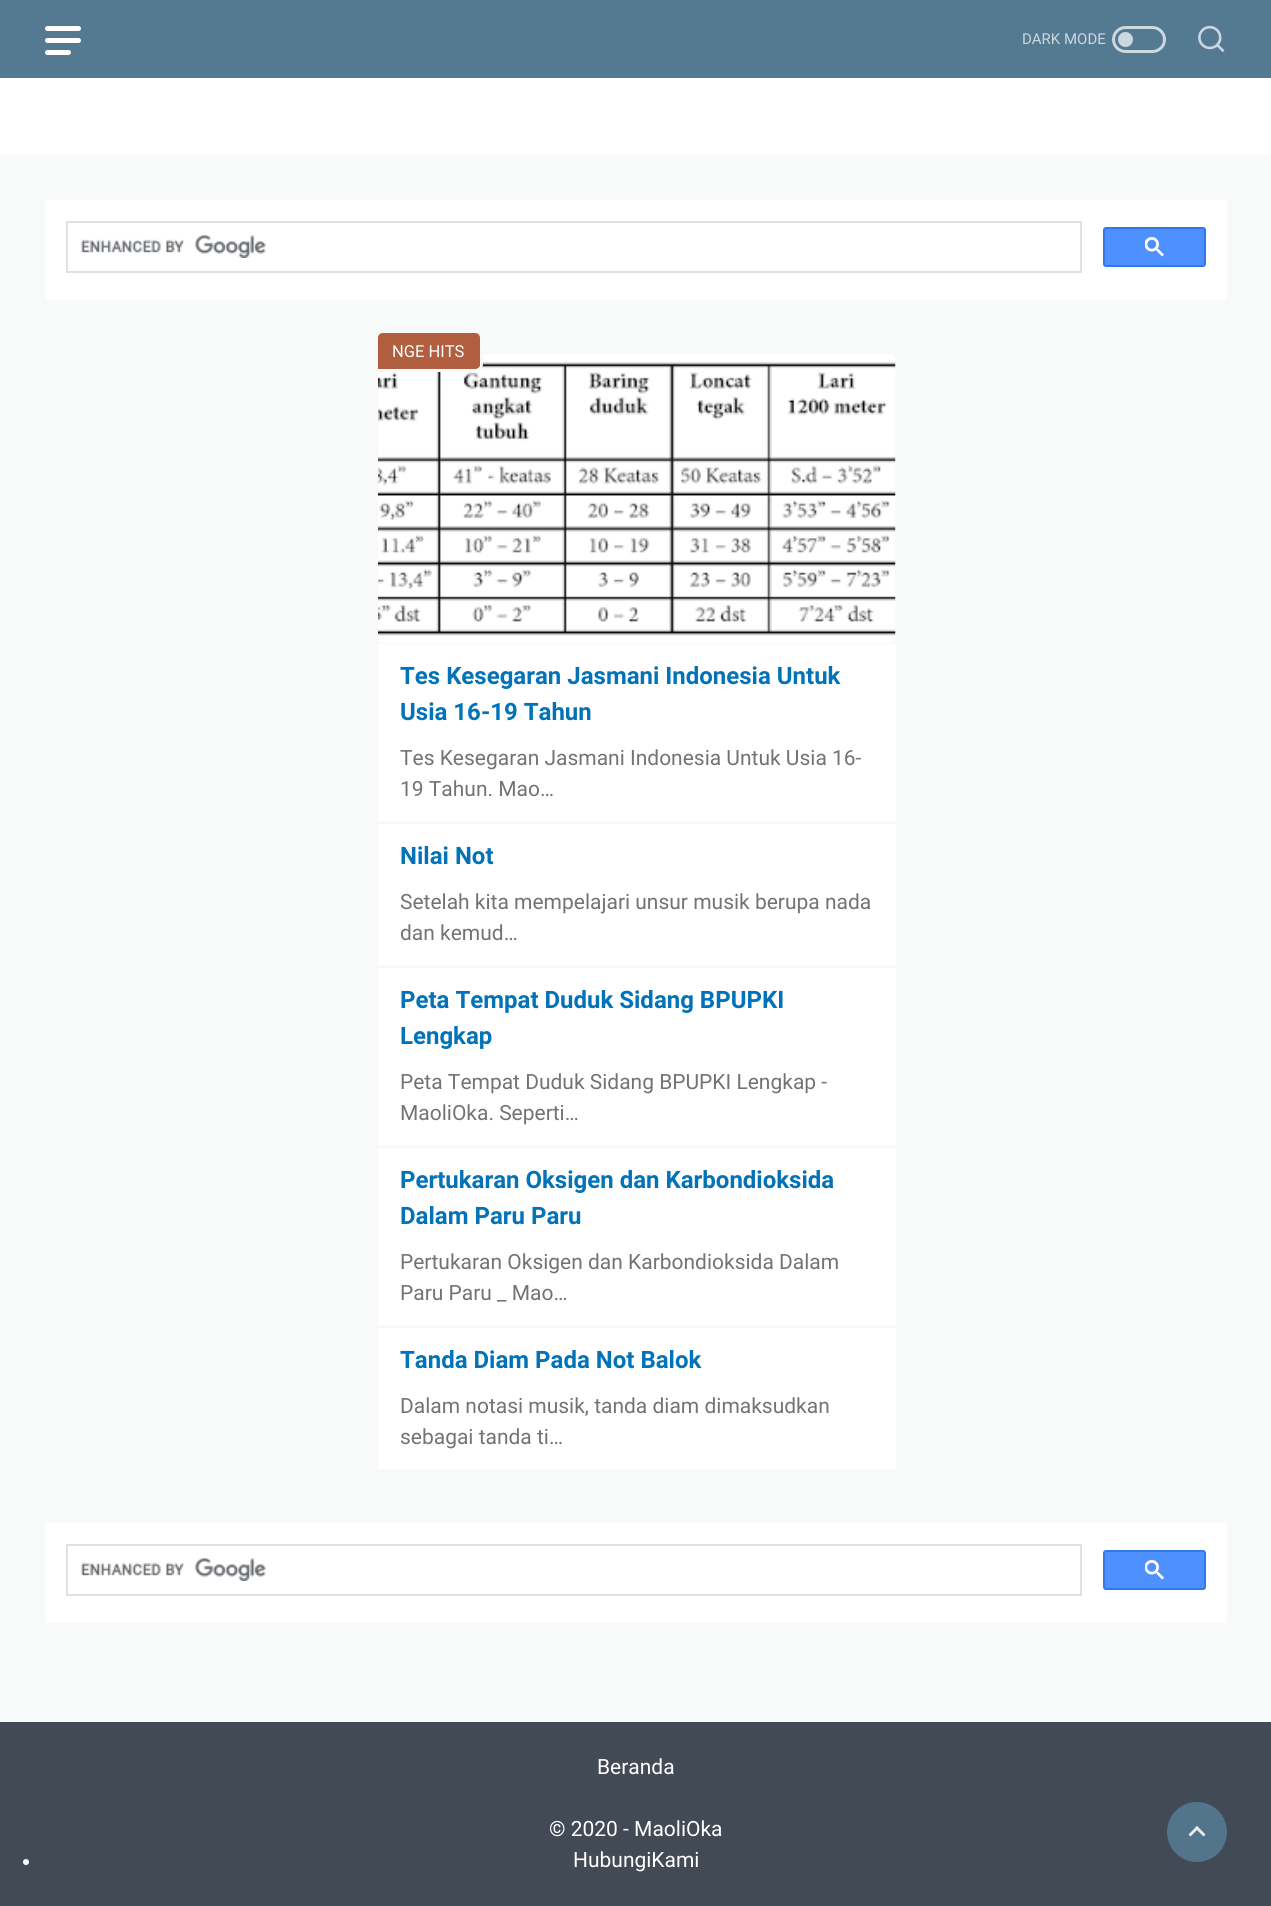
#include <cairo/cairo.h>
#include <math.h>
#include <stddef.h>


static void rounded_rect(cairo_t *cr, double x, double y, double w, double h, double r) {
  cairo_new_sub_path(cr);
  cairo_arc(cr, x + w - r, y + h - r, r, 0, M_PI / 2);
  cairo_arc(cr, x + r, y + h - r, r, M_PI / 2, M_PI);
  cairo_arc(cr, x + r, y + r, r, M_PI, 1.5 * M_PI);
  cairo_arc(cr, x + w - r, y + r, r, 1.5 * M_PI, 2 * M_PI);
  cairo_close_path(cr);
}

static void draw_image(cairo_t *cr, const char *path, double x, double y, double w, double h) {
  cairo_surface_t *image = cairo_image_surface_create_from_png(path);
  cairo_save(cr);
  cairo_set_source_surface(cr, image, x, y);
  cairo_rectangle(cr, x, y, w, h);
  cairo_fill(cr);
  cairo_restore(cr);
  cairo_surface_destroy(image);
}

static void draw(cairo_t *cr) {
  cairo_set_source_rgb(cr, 66 / 255.0, 74 / 255.0, 86 / 255.0);
  cairo_paint(cr);
  cairo_set_source_rgb(cr, 84 / 255.0, 122 / 255.0, 146 / 255.0);
  cairo_rectangle(cr, 0, 0, 1271, 78);
  cairo_fill(cr);
  cairo_set_source_rgb(cr, 1, 1, 1);
  rounded_rect(cr, 45, 26, 36, 5, 2.5);
  cairo_fill(cr);
  rounded_rect(cr, 45, 38, 36, 5, 2.5);
  cairo_fill(cr);
  rounded_rect(cr, 45, 50, 26, 5, 2.5);
  cairo_fill(cr);
  rounded_rect(cr, 1113.5, 27.5, 51, 24, 12);
  cairo_set_source_rgb(cr, 204 / 255.0, 215 / 255.0, 222 / 255.0);
  cairo_set_line_width(cr, 3);
  cairo_stroke(cr);
  cairo_arc(cr, 1125.5, 39.5, 7.5, 0, 2 * M_PI);
  cairo_fill(cr);
  draw_image(cr, "images/1.png", 1198, 25, 27, 28);
  cairo_set_source_rgb(cr, 1, 1, 1);
  cairo_rectangle(cr, 0, 78, 1271, 77);
  cairo_fill(cr);
  cairo_set_source_rgb(cr, 248 / 255.0, 250 / 255.0, 250 / 255.0);
  cairo_rectangle(cr, 0, 155, 1271, 1567);
  cairo_fill(cr);
  cairo_set_source_rgb(cr, 1, 1, 1);
  cairo_rectangle(cr, 45, 200, 1182, 100);
  cairo_fill(cr);
  cairo_rectangle(cr, 67, 222, 1014, 50);
  cairo_set_source_rgb(cr, 223 / 255.0, 225 / 255.0, 229 / 255.0);
  cairo_set_line_width(cr, 2);
  cairo_stroke(cr);
  draw_image(cr, "images/2.png", 81, 235, 185, 23);
  cairo_set_source_rgb(cr, 77 / 255.0, 144 / 255.0, 254 / 255.0);
  rounded_rect(cr, 1104, 228, 101, 38, 2);
  cairo_fill_preserve(cr);
  cairo_set_source_rgb(cr, 48 / 255.0, 121 / 255.0, 237 / 255.0);
  cairo_stroke(cr);
  draw_image(cr, "images/3.png", 1145, 237, 19, 20);
  draw_image(cr, "images/4.png", 378, 354, 518, 289);
  cairo_new_path(cr);
  cairo_move_to(cr, 383, 331.5);
  cairo_line_to(cr, 475, 331.5);
  cairo_curve_to(cr, 478.5, 331.5, 481.5, 334.5, 481.5, 338);
  cairo_line_to(cr, 481.5, 364);
  cairo_curve_to(cr, 481.5, 367.5, 478.5, 370.5, 475, 370.5);
  cairo_line_to(cr, 376.5, 370.5);
  cairo_line_to(cr, 376.5, 338);
  cairo_curve_to(cr, 376.5, 334.5, 379.5, 331.5, 383, 331.5);
  cairo_close_path(cr);
  cairo_set_source_rgb(cr, 248 / 255.0, 250 / 255.0, 250 / 255.0);
  cairo_set_line_width(cr, 3);
  cairo_stroke(cr);
  cairo_set_source_rgb(cr, 177 / 255.0, 95 / 255.0, 62 / 255.0);
  cairo_new_path(cr);
  cairo_move_to(cr, 383, 333);
  cairo_line_to(cr, 475, 333);
  cairo_curve_to(cr, 478, 333, 480, 335, 480, 338);
  cairo_line_to(cr, 480, 364);
  cairo_curve_to(cr, 480, 367, 478, 369, 475, 369);
  cairo_line_to(cr, 378, 369);
  cairo_line_to(cr, 378, 338);
  cairo_curve_to(cr, 378, 335, 380, 333, 383, 333);
  cairo_close_path(cr);
  cairo_fill(cr);
  cairo_set_source_rgb(cr, 1, 1, 1);
  cairo_rectangle(cr, 378, 644, 518, 177);
  cairo_fill(cr);
  cairo_rectangle(cr, 378, 824, 518, 141);
  cairo_fill(cr);
  cairo_rectangle(cr, 378, 968, 518, 177);
  cairo_fill(cr);
  cairo_rectangle(cr, 378, 1148, 518, 177);
  cairo_fill(cr);
  cairo_rectangle(cr, 378, 1328, 518, 141);
  cairo_fill(cr);
  cairo_rectangle(cr, 45, 1523, 1182, 100);
  cairo_fill(cr);
  cairo_rectangle(cr, 67, 1545, 1014, 50);
  cairo_set_source_rgb(cr, 223 / 255.0, 225 / 255.0, 229 / 255.0);
  cairo_set_line_width(cr, 2);
  cairo_stroke(cr);
  draw_image(cr, "images/2.png", 81, 1558, 185, 23);
  cairo_set_source_rgb(cr, 77 / 255.0, 144 / 255.0, 254 / 255.0);
  rounded_rect(cr, 1104, 1551, 101, 38, 2);
  cairo_fill_preserve(cr);
  cairo_set_source_rgb(cr, 48 / 255.0, 121 / 255.0, 237 / 255.0);
  cairo_stroke(cr);
  draw_image(cr, "images/3.png", 1145, 1560, 19, 20);
  cairo_set_source_rgb(cr, 1, 1, 1);
  cairo_arc(cr, 26, 1862, 3, 0, 2 * M_PI);
  cairo_fill(cr);
  cairo_set_source_rgb(cr, 82 / 255.0, 117 / 255.0, 140 / 255.0);
  cairo_arc(cr, 1197, 1832, 30, 0, 2 * M_PI);
  cairo_fill(cr);
  cairo_set_source_rgb(cr, 236 / 255.0, 237 / 255.0, 238 / 255.0);
  cairo_new_path(cr);
  cairo_move_to(cr, 1188.5, 1834.5);
  cairo_line_to(cr, 1197, 1826);
  cairo_line_to(cr, 1199, 1828);
  cairo_line_to(cr, 1190.5, 1836.5);
  cairo_close_path(cr);
  cairo_fill(cr);
  cairo_new_path(cr);
  cairo_move_to(cr, 1195, 1828);
  cairo_line_to(cr, 1197, 1826);
  cairo_line_to(cr, 1205.5, 1834.5);
  cairo_line_to(cr, 1203.5, 1836.5);
  cairo_close_path(cr);
  cairo_fill(cr);
  cairo_select_font_face(cr, "Roboto", CAIRO_FONT_SLANT_NORMAL, CAIRO_FONT_WEIGHT_NORMAL);
  cairo_set_font_size(cr, 15);
  cairo_set_source_rgb(cr, 204 / 255.0, 215 / 255.0, 222 / 255.0);
  cairo_move_to(cr, 1022, 44);
  cairo_show_text(cr, "DARK MODE");
  cairo_set_font_size(cr, 16.5);
  cairo_set_source_rgb(cr, 1, 1, 1);
  cairo_move_to(cr, 392, 357);
  cairo_show_text(cr, "NGE HITS");
  cairo_select_font_face(cr, "Roboto", CAIRO_FONT_SLANT_NORMAL, CAIRO_FONT_WEIGHT_BOLD);
  cairo_set_font_size(cr, 24);
  cairo_set_source_rgb(cr, 2 / 255.0, 115 / 255.0, 185 / 255.0);
  cairo_move_to(cr, 400, 684);
  cairo_show_text(cr, "Tes Kesegaran Jasmani Indonesia Untuk");
  cairo_move_to(cr, 400, 720);
  cairo_show_text(cr, "Usia 16-19 Tahun");
  cairo_select_font_face(cr, "Roboto", CAIRO_FONT_SLANT_NORMAL, CAIRO_FONT_WEIGHT_NORMAL);
  cairo_set_font_size(cr, 21);
  cairo_set_source_rgb(cr, 115 / 255.0, 115 / 255.0, 115 / 255.0);
  cairo_move_to(cr, 400, 765);
  cairo_show_text(cr, "Tes Kesegaran Jasmani Indonesia Untuk Usia 16-");
  cairo_move_to(cr, 400, 796);
  cairo_show_text(cr, "19 Tahun. Mao…");
  cairo_select_font_face(cr, "Roboto", CAIRO_FONT_SLANT_NORMAL, CAIRO_FONT_WEIGHT_BOLD);
  cairo_set_font_size(cr, 24);
  cairo_set_source_rgb(cr, 2 / 255.0, 115 / 255.0, 185 / 255.0);
  cairo_move_to(cr, 400, 864);
  cairo_show_text(cr, "Nilai Not");
  cairo_select_font_face(cr, "Roboto", CAIRO_FONT_SLANT_NORMAL, CAIRO_FONT_WEIGHT_NORMAL);
  cairo_set_font_size(cr, 21);
  cairo_set_source_rgb(cr, 115 / 255.0, 115 / 255.0, 115 / 255.0);
  cairo_move_to(cr, 400, 909);
  cairo_show_text(cr, "Setelah kita mempelajari unsur musik berupa nada");
  cairo_move_to(cr, 400, 940);
  cairo_show_text(cr, "dan kemud…");
  cairo_select_font_face(cr, "Roboto", CAIRO_FONT_SLANT_NORMAL, CAIRO_FONT_WEIGHT_BOLD);
  cairo_set_font_size(cr, 24);
  cairo_set_source_rgb(cr, 2 / 255.0, 115 / 255.0, 185 / 255.0);
  cairo_move_to(cr, 400, 1008);
  cairo_show_text(cr, "Peta Tempat Duduk Sidang BPUPKI");
  cairo_move_to(cr, 400, 1044);
  cairo_show_text(cr, "Lengkap");
  cairo_select_font_face(cr, "Roboto", CAIRO_FONT_SLANT_NORMAL, CAIRO_FONT_WEIGHT_NORMAL);
  cairo_set_font_size(cr, 21);
  cairo_set_source_rgb(cr, 115 / 255.0, 115 / 255.0, 115 / 255.0);
  cairo_move_to(cr, 400, 1089);
  cairo_show_text(cr, "Peta Tempat Duduk Sidang BPUPKI Lengkap -");
  cairo_move_to(cr, 400, 1120);
  cairo_show_text(cr, "MaoliOka. Seperti…");
  cairo_select_font_face(cr, "Roboto", CAIRO_FONT_SLANT_NORMAL, CAIRO_FONT_WEIGHT_BOLD);
  cairo_set_font_size(cr, 24);
  cairo_set_source_rgb(cr, 2 / 255.0, 115 / 255.0, 185 / 255.0);
  cairo_move_to(cr, 400, 1188);
  cairo_show_text(cr, "Pertukaran Oksigen dan Karbondioksida");
  cairo_move_to(cr, 400, 1224);
  cairo_show_text(cr, "Dalam Paru Paru");
  cairo_select_font_face(cr, "Roboto", CAIRO_FONT_SLANT_NORMAL, CAIRO_FONT_WEIGHT_NORMAL);
  cairo_set_font_size(cr, 21);
  cairo_set_source_rgb(cr, 115 / 255.0, 115 / 255.0, 115 / 255.0);
  cairo_move_to(cr, 400, 1269);
  cairo_show_text(cr, "Pertukaran Oksigen dan Karbondioksida Dalam");
  cairo_move_to(cr, 400, 1300);
  cairo_show_text(cr, "Paru Paru _ Mao…");
  cairo_select_font_face(cr, "Roboto", CAIRO_FONT_SLANT_NORMAL, CAIRO_FONT_WEIGHT_BOLD);
  cairo_set_font_size(cr, 24);
  cairo_set_source_rgb(cr, 2 / 255.0, 115 / 255.0, 185 / 255.0);
  cairo_move_to(cr, 400, 1368);
  cairo_show_text(cr, "Tanda Diam Pada Not Balok");
  cairo_select_font_face(cr, "Roboto", CAIRO_FONT_SLANT_NORMAL, CAIRO_FONT_WEIGHT_NORMAL);
  cairo_set_font_size(cr, 21);
  cairo_set_source_rgb(cr, 115 / 255.0, 115 / 255.0, 115 / 255.0);
  cairo_move_to(cr, 400, 1413);
  cairo_show_text(cr, "Dalam notasi musik, tanda diam dimaksudkan");
  cairo_move_to(cr, 400, 1444);
  cairo_show_text(cr, "sebagai tanda ti…");
  cairo_set_source_rgb(cr, 1, 1, 1);
  cairo_move_to(cr, 597, 1774);
  cairo_show_text(cr, "Beranda");
  cairo_move_to(cr, 549, 1836);
  cairo_show_text(cr, "© 2020 - MaoliOka");
  cairo_move_to(cr, 573, 1867);
  cairo_show_text(cr, "HubungiKami");
}

int main(void) {
  cairo_surface_t *surface = cairo_image_surface_create(CAIRO_FORMAT_RGB24, 1271, 1906);
  cairo_t *cr = cairo_create(surface);
  cairo_font_options_t *options = cairo_font_options_create();
  cairo_font_options_set_hint_metrics(options, CAIRO_HINT_METRICS_OFF);
  cairo_font_options_set_hint_style(options, CAIRO_HINT_STYLE_NONE);
  cairo_set_font_options(cr, options);
  cairo_set_miter_limit(cr, 4);
  draw(cr);
  cairo_surface_write_to_png(surface, "out.png");
  cairo_font_options_destroy(options);
  cairo_destroy(cr);
  cairo_surface_destroy(surface);
  return 0;
}
